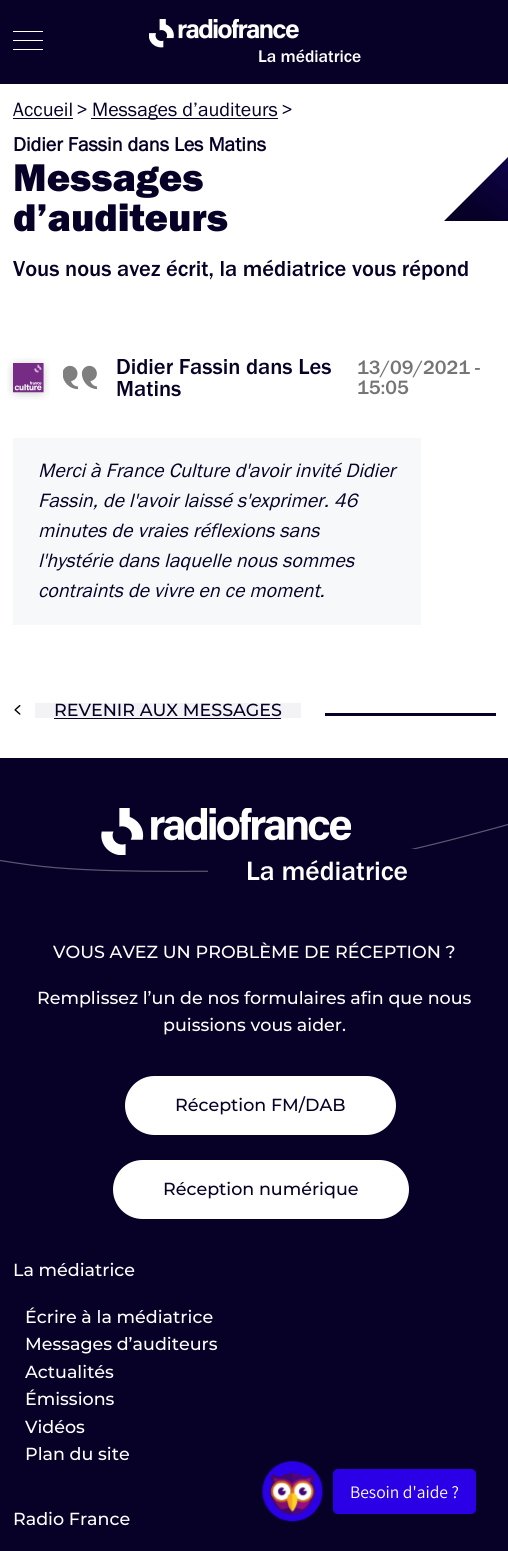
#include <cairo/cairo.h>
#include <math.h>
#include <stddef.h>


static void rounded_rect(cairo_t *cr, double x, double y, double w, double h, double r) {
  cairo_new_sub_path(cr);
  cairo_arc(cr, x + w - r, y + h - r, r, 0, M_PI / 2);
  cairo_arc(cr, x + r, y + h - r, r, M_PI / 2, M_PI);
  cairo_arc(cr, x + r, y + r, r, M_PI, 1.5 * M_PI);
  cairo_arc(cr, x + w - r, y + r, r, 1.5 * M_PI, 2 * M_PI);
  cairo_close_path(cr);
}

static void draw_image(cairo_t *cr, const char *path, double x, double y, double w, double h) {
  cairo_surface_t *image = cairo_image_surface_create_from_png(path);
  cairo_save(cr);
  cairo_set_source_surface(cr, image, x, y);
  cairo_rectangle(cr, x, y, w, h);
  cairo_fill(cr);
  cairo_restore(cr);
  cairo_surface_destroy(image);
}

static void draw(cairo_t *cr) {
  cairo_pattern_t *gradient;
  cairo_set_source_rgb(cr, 1, 1, 1);
  cairo_paint(cr);
  cairo_set_source_rgb(cr, 7 / 255.0, 0, 39 / 255.0);
  cairo_rectangle(cr, 0, 0, 508, 84);
  cairo_fill(cr);
  cairo_set_source_rgb(cr, 1, 1, 1);
  cairo_rectangle(cr, 13, 31, 30, 1);
  cairo_fill(cr);
  cairo_rectangle(cr, 13, 40, 30, 1);
  cairo_fill(cr);
  cairo_rectangle(cr, 13, 49, 30, 1);
  cairo_fill(cr);
  draw_image(cr, "images/1.png", 149, 19, 150, 29);
  cairo_set_source_rgb(cr, 7 / 255.0, 0, 39 / 255.0);
  cairo_rectangle(cr, 13, 118, 60, 1);
  cairo_fill(cr);
  cairo_rectangle(cr, 91, 118, 187, 1);
  cairo_fill(cr);
  gradient = cairo_pattern_create_linear(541, 318, 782, -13);
  cairo_pattern_add_color_stop_rgba(gradient, 0.11, 7 / 255.0, 0, 39 / 255.0, 1);
  cairo_pattern_add_color_stop_rgba(gradient, 0.88, 44 / 255.0, 12 / 255.0, 201 / 255.0, 1);
  cairo_set_source(cr, gradient);
  cairo_pattern_destroy(gradient);
  cairo_rectangle(cr, 444, 157, 64, 64);
  cairo_fill(cr);
  cairo_set_source_rgb(cr, 1, 1, 1);
  cairo_new_path(cr);
  cairo_move_to(cr, 406, 84);
  cairo_line_to(cr, 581, 84);
  cairo_line_to(cr, 406, 259);
  cairo_close_path(cr);
  cairo_fill(cr);
  draw_image(cr, "images/2.png", 7, 358, 43, 42);
  draw_image(cr, "images/3.png", 63, 365, 34, 25);
  cairo_set_source_rgb(cr, 247 / 255.0, 248 / 255.0, 250 / 255.0);
  cairo_rectangle(cr, 13, 438, 408, 187);
  cairo_fill(cr);
  draw_image(cr, "images/4.png", 14, 705, 7, 10);
  cairo_set_source_rgb(cr, 243 / 255.0, 242 / 255.0, 244 / 255.0);
  cairo_rectangle(cr, 35, 703, 266, 15);
  cairo_fill(cr);
  cairo_set_source_rgb(cr, 7 / 255.0, 0, 39 / 255.0);
  cairo_rectangle(cr, 54, 718, 227, 1);
  cairo_fill(cr);
  cairo_rectangle(cr, 325, 713, 171, 3);
  cairo_fill(cr);
  cairo_rectangle(cr, 0, 758, 508, 793);
  cairo_fill(cr);
  cairo_new_path(cr);
  cairo_move_to(cr, 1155, 808.5);
  cairo_curve_to(cr, 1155, 808.5, 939.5, 746, 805, 756.5);
  cairo_curve_to(cr, 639, 769.5, 419, 871, 255, 871);
  cairo_curve_to(cr, 196.5, 871, 93, 873.5, 30.5, 865);
  cairo_curve_to(cr, -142.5, 841.5, -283, 787, -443.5, 771);
  cairo_curve_to(cr, -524, 762.5, -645, 808.5, -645, 808.5);
  cairo_set_source_rgb(cr, 92 / 255.0, 88 / 255.0, 113 / 255.0);
  cairo_set_line_width(cr, 1.2);
  cairo_set_line_cap(cr, CAIRO_LINE_CAP_SQUARE);
  cairo_stroke(cr);
  draw_image(cr, "images/5.png", 101, 808, 250, 47);
  cairo_set_source_rgb(cr, 7 / 255.0, 0, 39 / 255.0);
  cairo_rectangle(cr, 208, 849, 208, 23);
  cairo_fill(cr);
  cairo_set_source_rgb(cr, 1, 1, 1);
  rounded_rect(cr, 125, 1076, 271, 59, 29.5);
  cairo_fill(cr);
  rounded_rect(cr, 113, 1160, 296, 59, 29.5);
  cairo_fill(cr);
  draw_image(cr, "images/6.png", 262, 1461, 61, 61);
  cairo_set_source_rgb(cr, 43 / 255.0, 0, 231 / 255.0);
  rounded_rect(cr, 333, 1469, 143, 45, 5);
  cairo_fill(cr);
  cairo_select_font_face(cr, "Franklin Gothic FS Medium", CAIRO_FONT_SLANT_NORMAL, CAIRO_FONT_WEIGHT_NORMAL);
  cairo_set_font_size(cr, 17.5);
  cairo_set_source_rgb(cr, 1, 1, 1);
  cairo_move_to(cr, 258, 62);
  cairo_show_text(cr, "La médiatrice");
  cairo_select_font_face(cr, "Franklin Gothic FS", CAIRO_FONT_SLANT_NORMAL, CAIRO_FONT_WEIGHT_NORMAL);
  cairo_set_font_size(cr, 20);
  cairo_set_source_rgb(cr, 7 / 255.0, 0, 39 / 255.0);
  cairo_move_to(cr, 13, 116);
  cairo_show_text(cr, "Accueil");
  cairo_move_to(cr, 76, 116);
  cairo_show_text(cr, ">");
  cairo_move_to(cr, 92, 116);
  cairo_show_text(cr, "Messages d’auditeurs");
  cairo_move_to(cr, 281, 116);
  cairo_show_text(cr, ">");
  cairo_select_font_face(cr, "Franklin Gothic FS", CAIRO_FONT_SLANT_NORMAL, CAIRO_FONT_WEIGHT_BOLD);
  cairo_move_to(cr, 13, 151);
  cairo_show_text(cr, "Didier Fassin dans Les Matins");
  cairo_select_font_face(cr, "Franklin Gothic FS ExtraBold", CAIRO_FONT_SLANT_NORMAL, CAIRO_FONT_WEIGHT_NORMAL);
  cairo_set_font_size(cr, 40);
  cairo_move_to(cr, 13, 191);
  cairo_show_text(cr, "Messages");
  cairo_move_to(cr, 13, 231);
  cairo_show_text(cr, "d’auditeurs");
  cairo_select_font_face(cr, "Franklin Gothic FS Medium", CAIRO_FONT_SLANT_NORMAL, CAIRO_FONT_WEIGHT_NORMAL);
  cairo_set_font_size(cr, 22.5);
  cairo_move_to(cr, 13, 276);
  cairo_show_text(cr, "Vous nous avez écrit, la médiatrice vous répond");
  cairo_move_to(cr, 116, 374);
  cairo_show_text(cr, "Didier Fassin dans Les");
  cairo_move_to(cr, 116, 396);
  cairo_show_text(cr, "Matins");
  cairo_set_font_size(cr, 20);
  cairo_set_source_rgb(cr, 117 / 255.0, 117 / 255.0, 117 / 255.0);
  cairo_move_to(cr, 357, 374);
  cairo_show_text(cr, "13/09/2021 -");
  cairo_move_to(cr, 357, 394);
  cairo_show_text(cr, "15:05");
  cairo_select_font_face(cr, "Franklin Gothic FS", CAIRO_FONT_SLANT_ITALIC, CAIRO_FONT_WEIGHT_NORMAL);
  cairo_set_source_rgb(cr, 7 / 255.0, 0, 39 / 255.0);
  cairo_move_to(cr, 38, 477);
  cairo_show_text(cr, "Merci à France Culture d'avoir invité Didier");
  cairo_move_to(cr, 38, 507);
  cairo_show_text(cr, "Fassin, de l'avoir laissé s'exprimer. 46");
  cairo_move_to(cr, 38, 537);
  cairo_show_text(cr, "minutes de vraies réflexions sans");
  cairo_move_to(cr, 38, 567);
  cairo_show_text(cr, "l'hystérie dans laquelle nous sommes");
  cairo_move_to(cr, 38, 597);
  cairo_show_text(cr, "contraints de vivre en ce moment.");
  cairo_select_font_face(cr, "Montserrat Medium", CAIRO_FONT_SLANT_NORMAL, CAIRO_FONT_WEIGHT_NORMAL);
  cairo_set_font_size(cr, 17.5);
  cairo_move_to(cr, 54, 716);
  cairo_show_text(cr, "REVENIR AUX MESSAGES");
  cairo_select_font_face(cr, "Franklin Gothic FS Medium", CAIRO_FONT_SLANT_NORMAL, CAIRO_FONT_WEIGHT_NORMAL);
  cairo_set_font_size(cr, 27.5);
  cairo_set_source_rgb(cr, 1, 1, 1);
  cairo_move_to(cr, 246, 880);
  cairo_show_text(cr, "La médiatrice");
  cairo_select_font_face(cr, "Montserrat Medium", CAIRO_FONT_SLANT_NORMAL, CAIRO_FONT_WEIGHT_NORMAL);
  cairo_set_font_size(cr, 17.5);
  cairo_move_to(cr, 53, 958);
  cairo_show_text(cr, "VOUS AVEZ UN PROBLÈME DE RÉCEPTION ?");
  cairo_move_to(cr, 37, 1004);
  cairo_show_text(cr, "Remplissez l’un de nos formulaires afin que nous");
  cairo_move_to(cr, 163, 1031);
  cairo_show_text(cr, "puissions vous aider.");
  cairo_set_source_rgb(cr, 7 / 255.0, 0, 39 / 255.0);
  cairo_move_to(cr, 175, 1111);
  cairo_show_text(cr, "Réception FM/DAB");
  cairo_move_to(cr, 163, 1195);
  cairo_show_text(cr, "Réception numérique");
  cairo_set_source_rgb(cr, 1, 1, 1);
  cairo_move_to(cr, 13, 1276);
  cairo_show_text(cr, "La médiatrice");
  cairo_move_to(cr, 25, 1323);
  cairo_show_text(cr, "Écrire à la médiatrice");
  cairo_move_to(cr, 25, 1350);
  cairo_show_text(cr, "Messages d’auditeurs");
  cairo_move_to(cr, 25, 1378);
  cairo_show_text(cr, "Actualités");
  cairo_move_to(cr, 25, 1405);
  cairo_show_text(cr, "Émissions");
  cairo_move_to(cr, 25, 1433);
  cairo_show_text(cr, "Vidéos");
  cairo_move_to(cr, 25, 1460);
  cairo_show_text(cr, "Plan du site");
  cairo_move_to(cr, 13, 1525);
  cairo_show_text(cr, "Radio France");
  cairo_select_font_face(cr, "Assistant", CAIRO_FONT_SLANT_NORMAL, CAIRO_FONT_WEIGHT_NORMAL);
  cairo_move_to(cr, 350, 1498);
  cairo_show_text(cr, "Besoin d'aide ?");
}

int main(void) {
  cairo_surface_t *surface = cairo_image_surface_create(CAIRO_FORMAT_RGB24, 508, 1551);
  cairo_t *cr = cairo_create(surface);
  cairo_font_options_t *options = cairo_font_options_create();
  cairo_font_options_set_hint_metrics(options, CAIRO_HINT_METRICS_OFF);
  cairo_font_options_set_hint_style(options, CAIRO_HINT_STYLE_NONE);
  cairo_set_font_options(cr, options);
  cairo_set_miter_limit(cr, 4);
  draw(cr);
  cairo_surface_write_to_png(surface, "out.png");
  cairo_font_options_destroy(options);
  cairo_destroy(cr);
  cairo_surface_destroy(surface);
  return 0;
}
